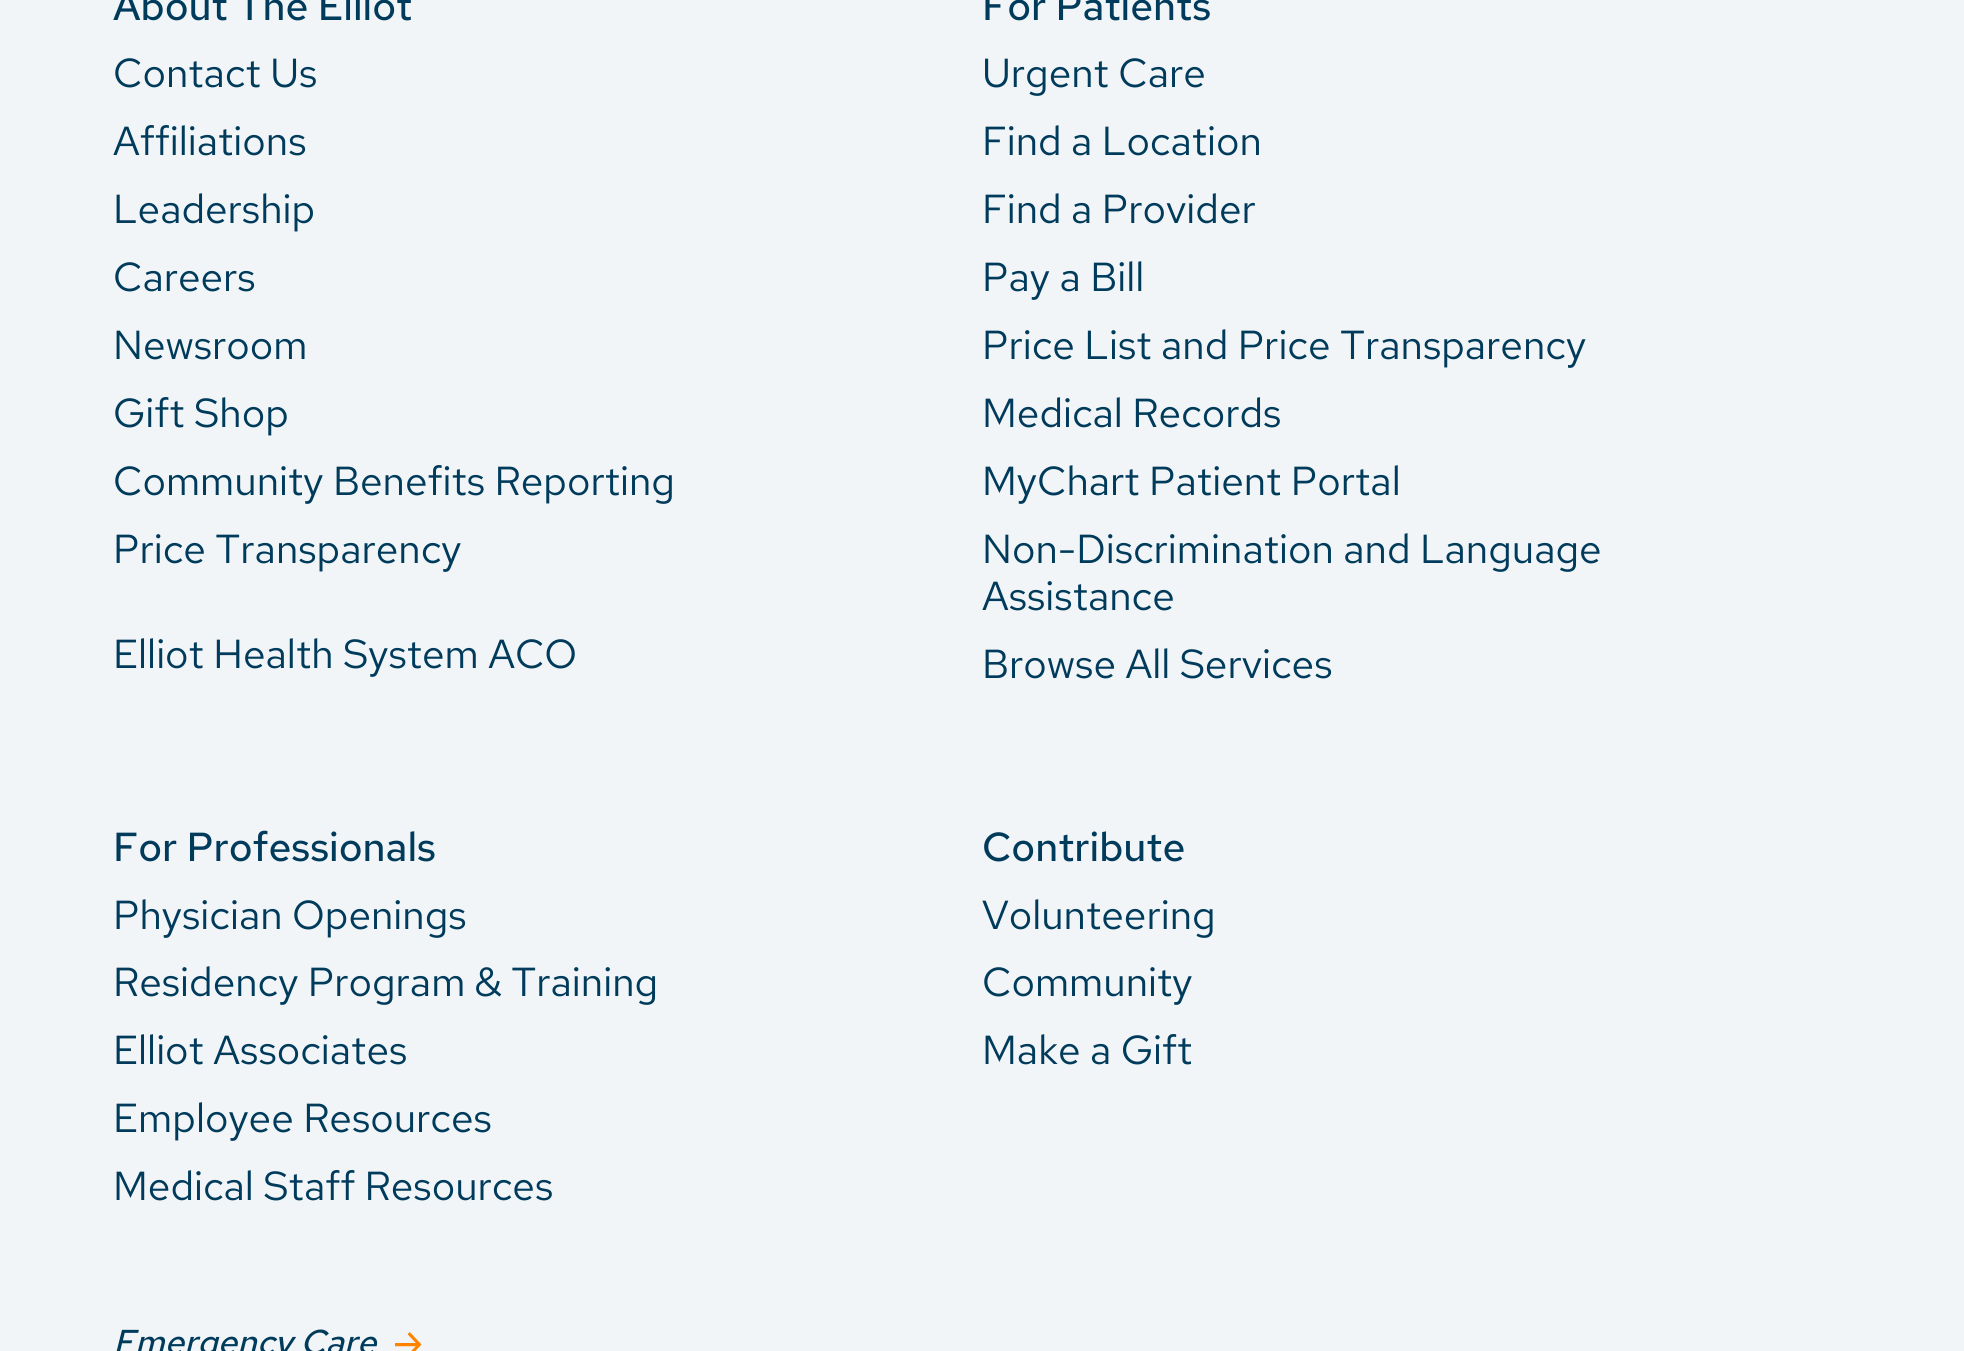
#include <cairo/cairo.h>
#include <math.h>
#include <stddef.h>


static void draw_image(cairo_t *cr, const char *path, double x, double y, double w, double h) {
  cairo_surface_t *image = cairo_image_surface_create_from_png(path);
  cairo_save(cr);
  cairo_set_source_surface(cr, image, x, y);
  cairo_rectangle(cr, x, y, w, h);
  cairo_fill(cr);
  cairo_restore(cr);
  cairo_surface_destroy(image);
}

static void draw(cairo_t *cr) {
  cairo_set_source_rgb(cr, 242 / 255.0, 245 / 255.0, 247 / 255.0);
  cairo_paint(cr);
  draw_image(cr, "images/1.png", 395, 1332, 27, 19);
  cairo_select_font_face(cr, "Red Hat Text Medium", CAIRO_FONT_SLANT_NORMAL, CAIRO_FONT_WEIGHT_NORMAL);
  cairo_set_font_size(cr, 40.5);
  cairo_set_source_rgb(cr, 0, 59 / 255.0, 92 / 255.0);
  cairo_move_to(cr, 113, 20);
  cairo_show_text(cr, "About The Elliot");
  cairo_select_font_face(cr, "Red Hat Text", CAIRO_FONT_SLANT_NORMAL, CAIRO_FONT_WEIGHT_NORMAL);
  cairo_move_to(cr, 113, 87);
  cairo_show_text(cr, "Contact Us");
  cairo_move_to(cr, 113, 155);
  cairo_show_text(cr, "Affiliations");
  cairo_move_to(cr, 113, 223);
  cairo_show_text(cr, "Leadership");
  cairo_move_to(cr, 113, 291);
  cairo_show_text(cr, "Careers");
  cairo_move_to(cr, 113, 359);
  cairo_show_text(cr, "Newsroom");
  cairo_move_to(cr, 113, 427);
  cairo_show_text(cr, "Gift Shop");
  cairo_move_to(cr, 113, 495);
  cairo_show_text(cr, "Community Benefits Reporting");
  cairo_move_to(cr, 113, 563);
  cairo_show_text(cr, "Price Transparency");
  cairo_move_to(cr, 113, 668);
  cairo_show_text(cr, "Elliot Health System ACO");
  cairo_select_font_face(cr, "Red Hat Text Medium", CAIRO_FONT_SLANT_NORMAL, CAIRO_FONT_WEIGHT_NORMAL);
  cairo_move_to(cr, 982, 20);
  cairo_show_text(cr, "For Patients");
  cairo_select_font_face(cr, "Red Hat Text", CAIRO_FONT_SLANT_NORMAL, CAIRO_FONT_WEIGHT_NORMAL);
  cairo_move_to(cr, 982, 87);
  cairo_show_text(cr, "Urgent Care");
  cairo_move_to(cr, 982, 155);
  cairo_show_text(cr, "Find a Location");
  cairo_move_to(cr, 982, 223);
  cairo_show_text(cr, "Find a Provider");
  cairo_move_to(cr, 982, 291);
  cairo_show_text(cr, "Pay a Bill");
  cairo_move_to(cr, 982, 359);
  cairo_show_text(cr, "Price List and Price Transparency");
  cairo_move_to(cr, 982, 427);
  cairo_show_text(cr, "Medical Records");
  cairo_move_to(cr, 982, 495);
  cairo_show_text(cr, "MyChart Patient Portal");
  cairo_move_to(cr, 982, 563);
  cairo_show_text(cr, "Non-Discrimination and Language");
  cairo_move_to(cr, 982, 610);
  cairo_show_text(cr, "Assistance");
  cairo_move_to(cr, 982, 678);
  cairo_show_text(cr, "Browse All Services");
  cairo_select_font_face(cr, "Red Hat Text Medium", CAIRO_FONT_SLANT_NORMAL, CAIRO_FONT_WEIGHT_NORMAL);
  cairo_move_to(cr, 113, 861);
  cairo_show_text(cr, "For Professionals");
  cairo_select_font_face(cr, "Red Hat Text", CAIRO_FONT_SLANT_NORMAL, CAIRO_FONT_WEIGHT_NORMAL);
  cairo_move_to(cr, 113, 929);
  cairo_show_text(cr, "Physician Openings");
  cairo_move_to(cr, 113, 996);
  cairo_show_text(cr, "Residency Program & Training");
  cairo_move_to(cr, 113, 1064);
  cairo_show_text(cr, "Elliot Associates");
  cairo_move_to(cr, 113, 1132);
  cairo_show_text(cr, "Employee Resources");
  cairo_move_to(cr, 113, 1200);
  cairo_show_text(cr, "Medical Staff Resources");
  cairo_select_font_face(cr, "Red Hat Text Medium", CAIRO_FONT_SLANT_NORMAL, CAIRO_FONT_WEIGHT_NORMAL);
  cairo_move_to(cr, 982, 861);
  cairo_show_text(cr, "Contribute");
  cairo_select_font_face(cr, "Red Hat Text", CAIRO_FONT_SLANT_NORMAL, CAIRO_FONT_WEIGHT_NORMAL);
  cairo_move_to(cr, 982, 929);
  cairo_show_text(cr, "Volunteering");
  cairo_move_to(cr, 982, 996);
  cairo_show_text(cr, "Community");
  cairo_move_to(cr, 982, 1064);
  cairo_show_text(cr, "Make a Gift");
  cairo_select_font_face(cr, "Red Hat Text Medium", CAIRO_FONT_SLANT_ITALIC, CAIRO_FONT_WEIGHT_NORMAL);
  cairo_set_font_size(cr, 34.5);
  cairo_move_to(cr, 113, 1354);
  cairo_show_text(cr, "Emergency Care");
}

int main(void) {
  cairo_surface_t *surface = cairo_image_surface_create(CAIRO_FORMAT_RGB24, 1964, 1351);
  cairo_t *cr = cairo_create(surface);
  cairo_font_options_t *options = cairo_font_options_create();
  cairo_font_options_set_hint_metrics(options, CAIRO_HINT_METRICS_OFF);
  cairo_font_options_set_hint_style(options, CAIRO_HINT_STYLE_NONE);
  cairo_set_font_options(cr, options);
  cairo_set_miter_limit(cr, 4);
  draw(cr);
  cairo_surface_write_to_png(surface, "out.png");
  cairo_font_options_destroy(options);
  cairo_destroy(cr);
  cairo_surface_destroy(surface);
  return 0;
}
